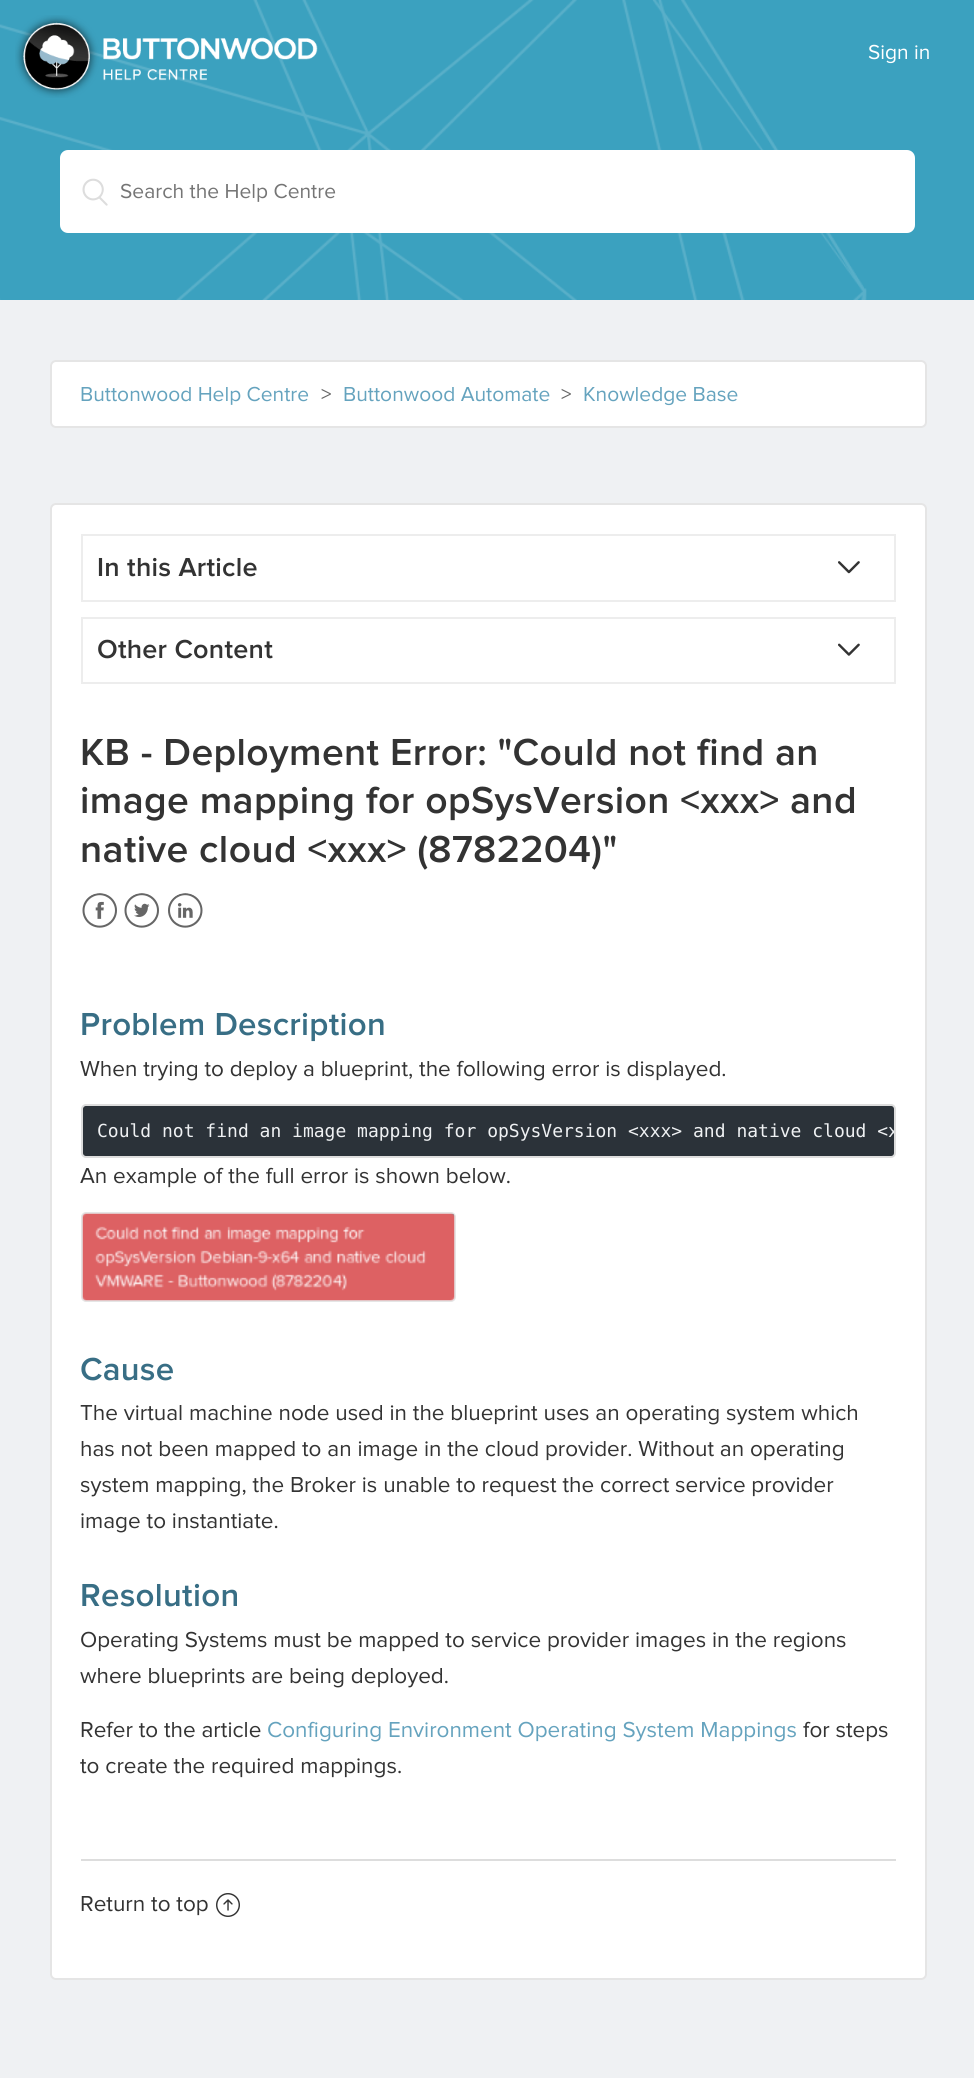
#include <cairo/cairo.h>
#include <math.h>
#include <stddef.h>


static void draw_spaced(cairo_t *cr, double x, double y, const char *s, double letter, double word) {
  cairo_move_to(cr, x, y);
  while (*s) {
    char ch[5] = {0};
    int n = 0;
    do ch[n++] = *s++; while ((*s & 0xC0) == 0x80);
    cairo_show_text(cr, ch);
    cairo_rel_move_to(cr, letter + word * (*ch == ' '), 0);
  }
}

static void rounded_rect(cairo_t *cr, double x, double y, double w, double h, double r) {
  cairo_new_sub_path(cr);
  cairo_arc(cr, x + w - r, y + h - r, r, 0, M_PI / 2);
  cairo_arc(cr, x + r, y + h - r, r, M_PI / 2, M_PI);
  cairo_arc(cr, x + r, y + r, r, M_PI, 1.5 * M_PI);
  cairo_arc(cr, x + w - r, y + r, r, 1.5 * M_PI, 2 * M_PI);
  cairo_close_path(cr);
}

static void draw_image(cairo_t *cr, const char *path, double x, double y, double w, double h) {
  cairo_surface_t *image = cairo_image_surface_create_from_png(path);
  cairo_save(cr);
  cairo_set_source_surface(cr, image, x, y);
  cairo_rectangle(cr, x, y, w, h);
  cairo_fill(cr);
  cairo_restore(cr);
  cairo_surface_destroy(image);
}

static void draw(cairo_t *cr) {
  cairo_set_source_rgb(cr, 239 / 255.0, 241 / 255.0, 243 / 255.0);
  cairo_paint(cr);
  cairo_set_source_rgb(cr, 59 / 255.0, 161 / 255.0, 191 / 255.0);
  cairo_rectangle(cr, 0, 0, 974, 300);
  cairo_fill(cr);
  draw_image(cr, "images/2.png", 0, 0, 867, 300);
  draw_image(cr, "images/1.png", 15, 15, 303, 83);
  cairo_set_source_rgb(cr, 1, 1, 1);
  rounded_rect(cr, 60, 150, 855, 83, 8);
  cairo_fill(cr);
  draw_image(cr, "images/3.png", 82, 178, 26, 28);
  rounded_rect(cr, 51, 361, 875, 66, 5);
  cairo_fill_preserve(cr);
  cairo_set_source_rgb(cr, 229 / 255.0, 229 / 255.0, 229 / 255.0);
  cairo_stroke(cr);
  cairo_set_source_rgb(cr, 1, 1, 1);
  rounded_rect(cr, 51, 504, 875, 1475, 5);
  cairo_fill_preserve(cr);
  cairo_set_source_rgb(cr, 229 / 255.0, 229 / 255.0, 229 / 255.0);
  cairo_stroke(cr);
  cairo_rectangle(cr, 82, 535, 813, 66);
  cairo_set_source_rgb(cr, 237 / 255.0, 237 / 255.0, 237 / 255.0);
  cairo_stroke(cr);
  draw_image(cr, "images/4.png", 838, 561, 22, 13);
  cairo_rectangle(cr, 82, 618, 813, 65);
  cairo_stroke(cr);
  draw_image(cr, "images/5.png", 838, 643, 22, 13);
  draw_image(cr, "images/6.png", 82, 893, 35, 35);
  draw_image(cr, "images/7.png", 124, 893, 35, 35);
  draw_image(cr, "images/8.png", 168, 893, 35, 35);
  cairo_set_source_rgb(cr, 43 / 255.0, 50 / 255.0, 57 / 255.0);
  rounded_rect(cr, 82, 1105, 813, 52, 4);
  cairo_fill_preserve(cr);
  cairo_set_source_rgb(cr, 221 / 255.0, 221 / 255.0, 221 / 255.0);
  cairo_stroke(cr);
  rounded_rect(cr, 82, 1213, 373, 88, 4);
  cairo_set_source_rgb(cr, 229 / 255.0, 229 / 255.0, 229 / 255.0);
  cairo_stroke(cr);
  draw_image(cr, "images/9.png", 82, 1213, 373, 88);
  cairo_set_source_rgb(cr, 221 / 255.0, 221 / 255.0, 221 / 255.0);
  cairo_rectangle(cr, 81, 1859, 815, 2);
  cairo_fill(cr);
  draw_image(cr, "images/10.png", 216, 1893, 24, 24);
  cairo_select_font_face(cr, "Proxima Nova", CAIRO_FONT_SLANT_NORMAL, CAIRO_FONT_WEIGHT_NORMAL);
  cairo_set_font_size(cr, 21);
  cairo_set_source_rgb(cr, 1, 1, 1);
  cairo_move_to(cr, 868, 59);
  cairo_show_text(cr, "Sign in");
  cairo_set_source_rgb(cr, 117 / 255.0, 117 / 255.0, 117 / 255.0);
  cairo_move_to(cr, 120, 198);
  cairo_show_text(cr, "Search the Help Centre");
  cairo_set_source_rgb(cr, 101 / 255.0, 163 / 255.0, 190 / 255.0);
  cairo_move_to(cr, 80, 401);
  cairo_show_text(cr, "Buttonwood Help Centre");
  cairo_set_source_rgb(cr, 102 / 255.0, 102 / 255.0, 102 / 255.0);
  cairo_move_to(cr, 321, 401);
  cairo_show_text(cr, ">");
  cairo_set_source_rgb(cr, 101 / 255.0, 163 / 255.0, 190 / 255.0);
  cairo_move_to(cr, 343, 401);
  cairo_show_text(cr, "Buttonwood Automate");
  cairo_set_source_rgb(cr, 102 / 255.0, 102 / 255.0, 102 / 255.0);
  cairo_move_to(cr, 561, 401);
  cairo_show_text(cr, ">");
  cairo_set_source_rgb(cr, 101 / 255.0, 163 / 255.0, 190 / 255.0);
  cairo_move_to(cr, 583, 401);
  cairo_show_text(cr, "Knowledge Base");
  cairo_select_font_face(cr, "Proxima Nova SemiBold", CAIRO_FONT_SLANT_NORMAL, CAIRO_FONT_WEIGHT_NORMAL);
  cairo_set_font_size(cr, 27);
  cairo_set_source_rgb(cr, 51 / 255.0, 51 / 255.0, 51 / 255.0);
  draw_spaced(cr, 97, 576, "In this Article", 0.25, 0);
  draw_spaced(cr, 97, 658, "Other Content", 0.25, 0);
  cairo_set_font_size(cr, 39);
  draw_spaced(cr, 80, 765, "KB - Deployment Error: \"Could not find an", 0.4, 0);
  draw_spaced(cr, 80, 813, "image mapping for opSysVersion <xxx> and", 0.4, 0);
  draw_spaced(cr, 80, 862, "native cloud <xxx> (8782204)\"", 0.4, 0);
  cairo_set_font_size(cr, 33);
  cairo_set_source_rgb(cr, 56 / 255.0, 110 / 255.0, 133 / 255.0);
  draw_spaced(cr, 80, 1035, "Problem Description", 0.3, 0);
  cairo_select_font_face(cr, "Proxima Nova", CAIRO_FONT_SLANT_NORMAL, CAIRO_FONT_WEIGHT_NORMAL);
  cairo_set_font_size(cr, 22.5);
  cairo_set_source_rgb(cr, 51 / 255.0, 51 / 255.0, 51 / 255.0);
  cairo_move_to(cr, 80, 1076);
  cairo_show_text(cr, "When trying to deploy a blueprint, the following error is displayed.");
  cairo_save(cr);
  rounded_rect(cr, 83, 1106, 811, 51, 3);
  cairo_clip(cr);
  cairo_select_font_face(cr, "DejaVu Sans Mono", CAIRO_FONT_SLANT_NORMAL, CAIRO_FONT_WEIGHT_NORMAL);
  cairo_set_font_size(cr, 18);
  cairo_set_source_rgb(cr, 239 / 255.0, 241 / 255.0, 243 / 255.0);
  cairo_move_to(cr, 97, 1137);
  cairo_show_text(cr, "Could not find an image mapping for opSysVersion <xxx> and native cloud <x");
  cairo_restore(cr);
  cairo_move_to(cr, 80, 1183);
  cairo_show_text(cr, "An example of the full error is shown below.");
  cairo_select_font_face(cr, "Proxima Nova SemiBold", CAIRO_FONT_SLANT_NORMAL, CAIRO_FONT_WEIGHT_NORMAL);
  cairo_set_font_size(cr, 33);
  cairo_set_source_rgb(cr, 56 / 255.0, 110 / 255.0, 133 / 255.0);
  draw_spaced(cr, 80, 1380, "Cause", 0.3, 0);
  cairo_select_font_face(cr, "Proxima Nova", CAIRO_FONT_SLANT_NORMAL, CAIRO_FONT_WEIGHT_NORMAL);
  cairo_set_font_size(cr, 22.5);
  cairo_set_source_rgb(cr, 51 / 255.0, 51 / 255.0, 51 / 255.0);
  cairo_move_to(cr, 80, 1420);
  cairo_show_text(cr, "The virtual machine node used in the blueprint uses an operating system which");
  cairo_move_to(cr, 80, 1456);
  cairo_show_text(cr, "has not been mapped to an image in the cloud provider. Without an operating");
  cairo_move_to(cr, 80, 1492);
  cairo_show_text(cr, "system mapping, the Broker is unable to request the correct service provider");
  cairo_move_to(cr, 80, 1528);
  cairo_show_text(cr, "image to instantiate.");
  cairo_select_font_face(cr, "Proxima Nova SemiBold", CAIRO_FONT_SLANT_NORMAL, CAIRO_FONT_WEIGHT_NORMAL);
  cairo_set_font_size(cr, 33);
  cairo_set_source_rgb(cr, 56 / 255.0, 110 / 255.0, 133 / 255.0);
  draw_spaced(cr, 80, 1606, "Resolution", 0.3, 0);
  cairo_select_font_face(cr, "Proxima Nova", CAIRO_FONT_SLANT_NORMAL, CAIRO_FONT_WEIGHT_NORMAL);
  cairo_set_font_size(cr, 22.5);
  cairo_set_source_rgb(cr, 51 / 255.0, 51 / 255.0, 51 / 255.0);
  cairo_move_to(cr, 80, 1647);
  cairo_show_text(cr, "Operating Systems must be mapped to service provider images in the regions");
  cairo_move_to(cr, 80, 1683);
  cairo_show_text(cr, "where blueprints are being deployed.");
  cairo_move_to(cr, 80, 1737);
  cairo_show_text(cr, "Refer to the article");
  cairo_set_source_rgb(cr, 101 / 255.0, 163 / 255.0, 190 / 255.0);
  cairo_move_to(cr, 267, 1737);
  cairo_show_text(cr, "Configuring Environment Operating System Mappings");
  cairo_set_source_rgb(cr, 51 / 255.0, 51 / 255.0, 51 / 255.0);
  cairo_move_to(cr, 803, 1737);
  cairo_show_text(cr, "for steps");
  cairo_move_to(cr, 80, 1773);
  cairo_show_text(cr, "to create the required mappings.");
  cairo_move_to(cr, 80, 1911);
  cairo_show_text(cr, "Return to top");
}

int main(void) {
  cairo_surface_t *surface = cairo_image_surface_create(CAIRO_FORMAT_RGB24, 974, 2078);
  cairo_t *cr = cairo_create(surface);
  cairo_font_options_t *options = cairo_font_options_create();
  cairo_font_options_set_hint_metrics(options, CAIRO_HINT_METRICS_OFF);
  cairo_font_options_set_hint_style(options, CAIRO_HINT_STYLE_NONE);
  cairo_set_font_options(cr, options);
  cairo_set_miter_limit(cr, 4);
  draw(cr);
  cairo_surface_write_to_png(surface, "out.png");
  cairo_font_options_destroy(options);
  cairo_destroy(cr);
  cairo_surface_destroy(surface);
  return 0;
}
